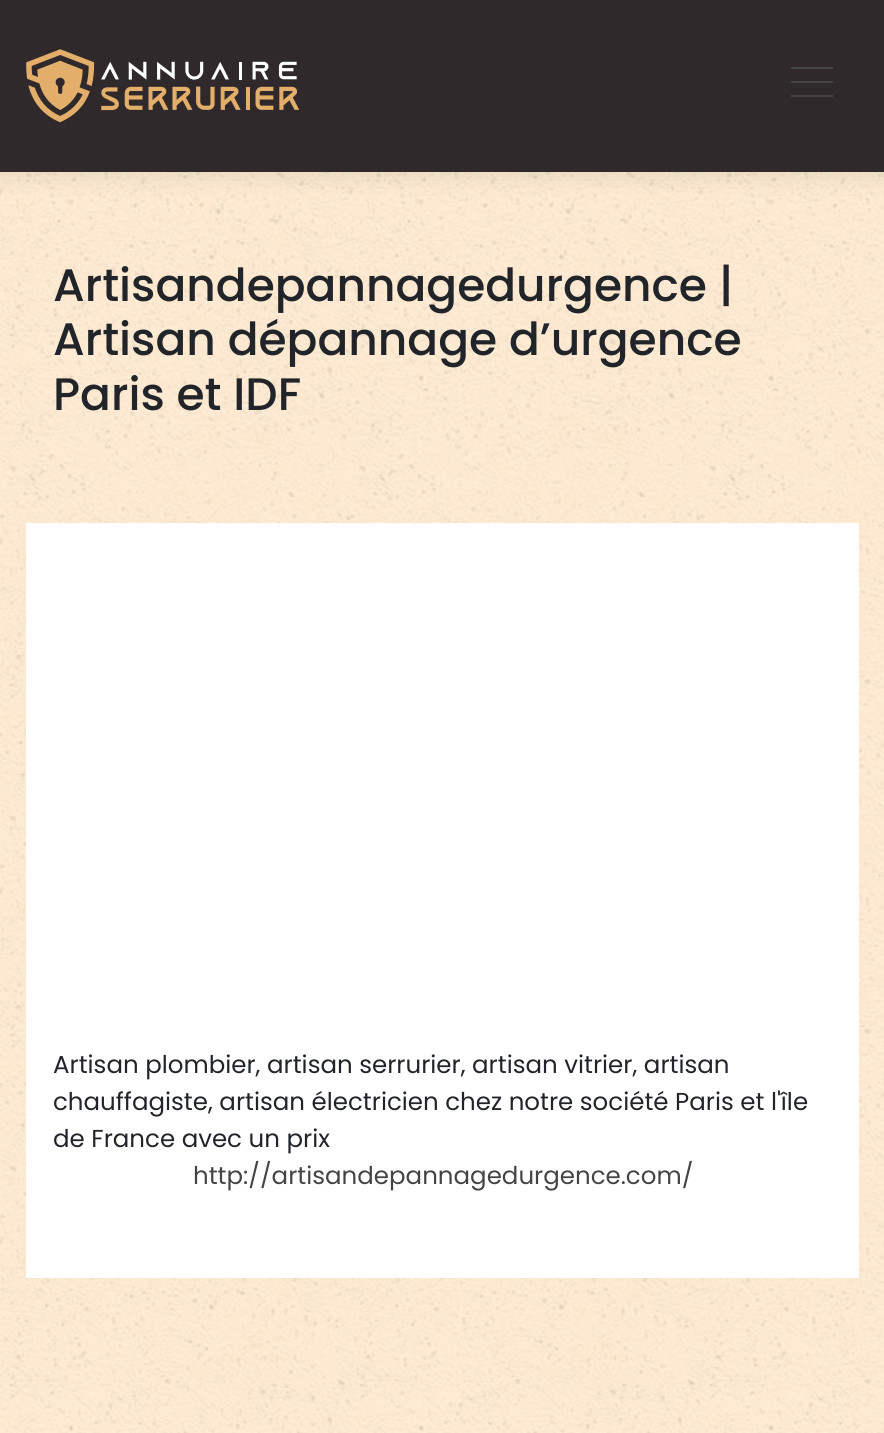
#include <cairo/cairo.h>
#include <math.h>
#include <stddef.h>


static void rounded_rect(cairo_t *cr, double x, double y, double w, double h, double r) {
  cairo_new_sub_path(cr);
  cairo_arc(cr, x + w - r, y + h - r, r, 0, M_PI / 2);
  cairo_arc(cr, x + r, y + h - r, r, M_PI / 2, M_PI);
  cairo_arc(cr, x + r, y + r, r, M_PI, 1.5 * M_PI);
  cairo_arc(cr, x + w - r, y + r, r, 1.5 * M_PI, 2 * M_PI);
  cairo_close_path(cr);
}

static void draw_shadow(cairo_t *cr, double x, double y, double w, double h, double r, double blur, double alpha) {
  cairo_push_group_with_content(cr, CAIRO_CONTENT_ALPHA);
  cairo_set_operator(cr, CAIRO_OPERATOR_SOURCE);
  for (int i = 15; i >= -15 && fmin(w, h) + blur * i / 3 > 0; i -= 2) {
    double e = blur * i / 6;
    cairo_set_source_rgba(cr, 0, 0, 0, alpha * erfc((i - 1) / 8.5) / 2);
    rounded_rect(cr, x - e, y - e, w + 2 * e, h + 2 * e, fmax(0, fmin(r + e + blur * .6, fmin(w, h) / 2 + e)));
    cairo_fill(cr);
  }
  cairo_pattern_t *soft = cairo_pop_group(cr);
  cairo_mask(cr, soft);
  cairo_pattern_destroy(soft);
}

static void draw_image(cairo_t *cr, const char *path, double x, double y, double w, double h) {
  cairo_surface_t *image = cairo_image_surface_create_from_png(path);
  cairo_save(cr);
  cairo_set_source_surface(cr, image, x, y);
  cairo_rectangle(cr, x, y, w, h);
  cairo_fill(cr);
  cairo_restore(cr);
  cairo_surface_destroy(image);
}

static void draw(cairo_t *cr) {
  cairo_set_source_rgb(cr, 1, 1, 1);
  cairo_paint(cr);
  draw_image(cr, "images/1.png", 0, 172, 884, 1261);
  cairo_set_source_rgb(cr, 0, 0, 0);
  draw_shadow(cr, 0, 4, 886, 171, 0, 11.5, 0.1);
  cairo_set_source_rgb(cr, 48 / 255.0, 41 / 255.0, 43 / 255.0);
  cairo_rectangle(cr, 0, 0, 884, 172);
  cairo_fill(cr);
  draw_image(cr, "images/2.png", 26, 49, 273, 74);
  cairo_set_source_rgb(cr, 68 / 255.0, 68 / 255.0, 68 / 255.0);
  cairo_rectangle(cr, 791, 67, 42, 2);
  cairo_fill(cr);
  cairo_rectangle(cr, 791, 81, 42, 2);
  cairo_fill(cr);
  cairo_rectangle(cr, 791, 95, 42, 2);
  cairo_fill(cr);
  cairo_set_source_rgb(cr, 1, 1, 1);
  cairo_rectangle(cr, 26, 523, 833, 755);
  cairo_fill(cr);
  cairo_select_font_face(cr, "Poppins Medium", CAIRO_FONT_SLANT_NORMAL, CAIRO_FONT_WEIGHT_NORMAL);
  cairo_set_font_size(cr, 45.5);
  cairo_set_source_rgb(cr, 33 / 255.0, 37 / 255.0, 41 / 255.0);
  cairo_move_to(cr, 53, 301);
  cairo_show_text(cr, "Artisandepannagedurgence |");
  cairo_move_to(cr, 53, 355);
  cairo_show_text(cr, "Artisan dépannage d’urgence");
  cairo_move_to(cr, 53, 410);
  cairo_show_text(cr, "Paris et IDF");
  cairo_select_font_face(cr, "Poppins", CAIRO_FONT_SLANT_NORMAL, CAIRO_FONT_WEIGHT_NORMAL);
  cairo_set_font_size(cr, 24.5);
  cairo_move_to(cr, 53, 1073);
  cairo_show_text(cr, "Artisan plombier, artisan serrurier, artisan vitrier, artisan");
  cairo_move_to(cr, 53, 1110);
  cairo_show_text(cr, "chauffagiste, artisan électricien chez notre société Paris et l'île");
  cairo_move_to(cr, 53, 1147);
  cairo_show_text(cr, "de France avec un prix");
  cairo_set_source_rgb(cr, 68 / 255.0, 68 / 255.0, 68 / 255.0);
  cairo_move_to(cr, 193, 1184);
  cairo_show_text(cr, "http://artisandepannagedurgence.com/");
}

int main(void) {
  cairo_surface_t *surface = cairo_image_surface_create(CAIRO_FORMAT_RGB24, 884, 1433);
  cairo_t *cr = cairo_create(surface);
  cairo_font_options_t *options = cairo_font_options_create();
  cairo_font_options_set_hint_metrics(options, CAIRO_HINT_METRICS_OFF);
  cairo_font_options_set_hint_style(options, CAIRO_HINT_STYLE_NONE);
  cairo_set_font_options(cr, options);
  cairo_set_miter_limit(cr, 4);
  draw(cr);
  cairo_surface_write_to_png(surface, "out.png");
  cairo_font_options_destroy(options);
  cairo_destroy(cr);
  cairo_surface_destroy(surface);
  return 0;
}
